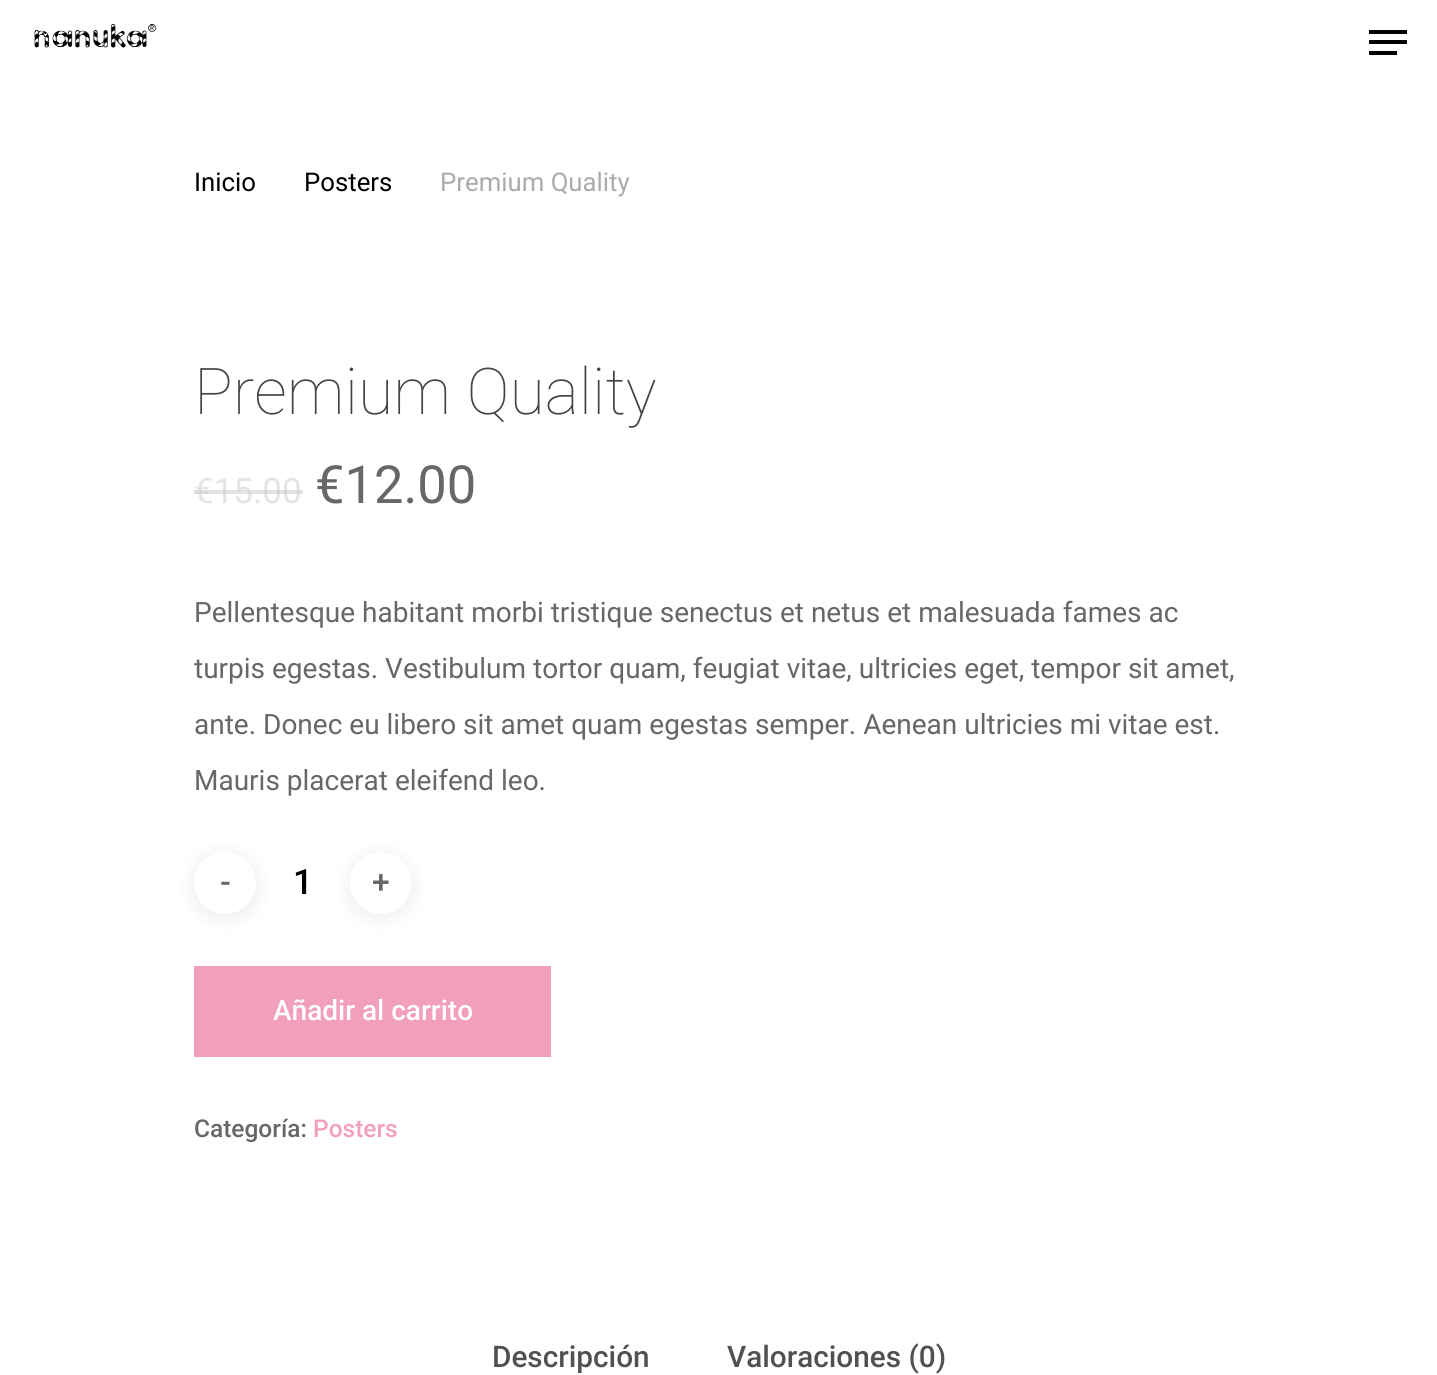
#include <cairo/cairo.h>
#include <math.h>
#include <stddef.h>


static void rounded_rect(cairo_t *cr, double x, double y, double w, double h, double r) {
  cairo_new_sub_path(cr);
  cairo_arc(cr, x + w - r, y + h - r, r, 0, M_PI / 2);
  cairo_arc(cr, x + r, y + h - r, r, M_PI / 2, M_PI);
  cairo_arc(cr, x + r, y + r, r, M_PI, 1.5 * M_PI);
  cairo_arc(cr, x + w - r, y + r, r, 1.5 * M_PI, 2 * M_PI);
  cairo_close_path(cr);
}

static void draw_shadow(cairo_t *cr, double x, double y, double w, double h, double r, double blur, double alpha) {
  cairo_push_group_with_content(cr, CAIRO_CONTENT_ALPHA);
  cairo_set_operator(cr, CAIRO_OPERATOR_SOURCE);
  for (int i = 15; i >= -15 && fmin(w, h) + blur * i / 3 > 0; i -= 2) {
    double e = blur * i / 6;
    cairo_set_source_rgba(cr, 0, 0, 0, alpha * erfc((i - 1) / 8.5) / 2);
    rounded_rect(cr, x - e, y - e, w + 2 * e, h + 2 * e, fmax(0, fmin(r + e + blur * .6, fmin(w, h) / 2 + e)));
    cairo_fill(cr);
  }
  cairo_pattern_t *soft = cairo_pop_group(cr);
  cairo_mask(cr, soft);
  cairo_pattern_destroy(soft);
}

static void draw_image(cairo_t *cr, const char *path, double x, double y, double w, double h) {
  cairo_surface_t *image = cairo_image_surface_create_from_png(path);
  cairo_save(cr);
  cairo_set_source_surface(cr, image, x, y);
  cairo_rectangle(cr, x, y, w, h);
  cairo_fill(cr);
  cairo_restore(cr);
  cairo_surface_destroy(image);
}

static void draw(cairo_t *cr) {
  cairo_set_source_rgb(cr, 1, 1, 1);
  cairo_paint(cr);
  draw_image(cr, "images/1.png", 34, 24, 123, 24);
  cairo_set_source_rgb(cr, 2 / 255.0, 2 / 255.0, 2 / 255.0);
  cairo_rectangle(cr, 1369, 30, 38, 4);
  cairo_fill(cr);
  cairo_rectangle(cr, 1369, 51, 28, 4);
  cairo_fill(cr);
  cairo_rectangle(cr, 1369, 40, 38, 4);
  cairo_fill(cr);
  cairo_set_source_rgb(cr, 0, 0, 0);
  draw_shadow(cr, 194, 856, 62, 61, 30.5, 10.5, 0.08);
  cairo_set_source_rgb(cr, 1, 1, 1);
  cairo_arc(cr, 225, 883, 31, 0, 2 * M_PI);
  cairo_fill(cr);
  cairo_set_source_rgb(cr, 0, 0, 0);
  draw_shadow(cr, 350, 856, 61, 61, 30.5, 10.5, 0.08);
  cairo_set_source_rgb(cr, 1, 1, 1);
  rounded_rect(cr, 350, 852, 61, 62, 30.5);
  cairo_fill(cr);
  cairo_set_source_rgb(cr, 242 / 255.0, 159 / 255.0, 190 / 255.0);
  cairo_rectangle(cr, 194, 966, 357, 91);
  cairo_fill(cr);
  cairo_select_font_face(cr, "Roboto", CAIRO_FONT_SLANT_NORMAL, CAIRO_FONT_WEIGHT_NORMAL);
  cairo_set_font_size(cr, 25.75);
  cairo_set_source_rgb(cr, 0, 0, 0);
  cairo_move_to(cr, 194, 191);
  cairo_show_text(cr, "Inicio");
  cairo_move_to(cr, 304, 191);
  cairo_show_text(cr, "Posters");
  cairo_set_source_rgb(cr, 171 / 255.0, 171 / 255.0, 171 / 255.0);
  cairo_move_to(cr, 440, 191);
  cairo_show_text(cr, "Premium Quality");
  cairo_select_font_face(cr, "Roboto Thin", CAIRO_FONT_SLANT_NORMAL, CAIRO_FONT_WEIGHT_NORMAL);
  cairo_set_font_size(cr, 64.5);
  cairo_set_source_rgb(cr, 68 / 255.0, 68 / 255.0, 68 / 255.0);
  cairo_move_to(cr, 194, 414);
  cairo_show_text(cr, "Premium Quality");
  cairo_select_font_face(cr, "Roboto", CAIRO_FONT_SLANT_NORMAL, CAIRO_FONT_WEIGHT_NORMAL);
  cairo_set_font_size(cr, 35);
  cairo_set_source_rgb(cr, 228 / 255.0, 228 / 255.0, 228 / 255.0);
  cairo_move_to(cr, 194, 503);
  cairo_show_text(cr, "€15.00");
  cairo_set_source_rgba(cr, 200 / 255.0, 200 / 255.0, 200 / 255.0, 0.5);
  cairo_rectangle(cr, 194, 490, 20, 4);
  cairo_fill(cr);
  cairo_rectangle(cr, 214, 490, 89, 4);
  cairo_fill(cr);
  cairo_set_font_size(cr, 52.5);
  cairo_set_source_rgb(cr, 103 / 255.0, 103 / 255.0, 103 / 255.0);
  cairo_move_to(cr, 315, 503);
  cairo_show_text(cr, "€12.00");
  cairo_set_font_size(cr, 28);
  cairo_move_to(cr, 194, 622);
  cairo_show_text(cr, "Pellentesque habitant morbi tristique senectus et netus et malesuada fames ac");
  cairo_move_to(cr, 194, 678);
  cairo_show_text(cr, "turpis egestas. Vestibulum tortor quam, feugiat vitae, ultricies eget, tempor sit amet,");
  cairo_move_to(cr, 194, 734);
  cairo_show_text(cr, "ante. Donec eu libero sit amet quam egestas semper. Aenean ultricies mi vitae est.");
  cairo_move_to(cr, 194, 790);
  cairo_show_text(cr, "Mauris placerat eleifend leo.");
  cairo_select_font_face(cr, "Roboto Medium", CAIRO_FONT_SLANT_NORMAL, CAIRO_FONT_WEIGHT_NORMAL);
  cairo_set_font_size(cr, 32);
  cairo_move_to(cr, 220, 893);
  cairo_show_text(cr, "-");
  cairo_set_font_size(cr, 35);
  cairo_set_source_rgb(cr, 0, 0, 0);
  cairo_move_to(cr, 293, 894);
  cairo_show_text(cr, "1");
  cairo_set_font_size(cr, 32);
  cairo_set_source_rgb(cr, 103 / 255.0, 103 / 255.0, 103 / 255.0);
  cairo_move_to(cr, 372, 893);
  cairo_show_text(cr, "+");
  cairo_set_font_size(cr, 28);
  cairo_set_source_rgb(cr, 1, 1, 1);
  cairo_move_to(cr, 273, 1020);
  cairo_show_text(cr, "Añadir al carrito");
  cairo_set_font_size(cr, 24.5);
  cairo_set_source_rgb(cr, 103 / 255.0, 103 / 255.0, 103 / 255.0);
  cairo_move_to(cr, 194, 1137);
  cairo_show_text(cr, "Categoría:");
  cairo_set_source_rgb(cr, 242 / 255.0, 159 / 255.0, 190 / 255.0);
  cairo_move_to(cr, 313, 1137);
  cairo_show_text(cr, "Posters");
  cairo_set_font_size(cr, 29.75);
  cairo_set_source_rgb(cr, 81 / 255.0, 81 / 255.0, 81 / 255.0);
  cairo_move_to(cr, 492, 1367);
  cairo_show_text(cr, "Descripción");
  cairo_move_to(cr, 727, 1367);
  cairo_show_text(cr, "Valoraciones (0)");
}

int main(void) {
  cairo_surface_t *surface = cairo_image_surface_create(CAIRO_FORMAT_RGB24, 1437, 1375);
  cairo_t *cr = cairo_create(surface);
  cairo_font_options_t *options = cairo_font_options_create();
  cairo_font_options_set_hint_metrics(options, CAIRO_HINT_METRICS_OFF);
  cairo_font_options_set_hint_style(options, CAIRO_HINT_STYLE_NONE);
  cairo_set_font_options(cr, options);
  cairo_set_miter_limit(cr, 4);
  draw(cr);
  cairo_surface_write_to_png(surface, "out.png");
  cairo_font_options_destroy(options);
  cairo_destroy(cr);
  cairo_surface_destroy(surface);
  return 0;
}
